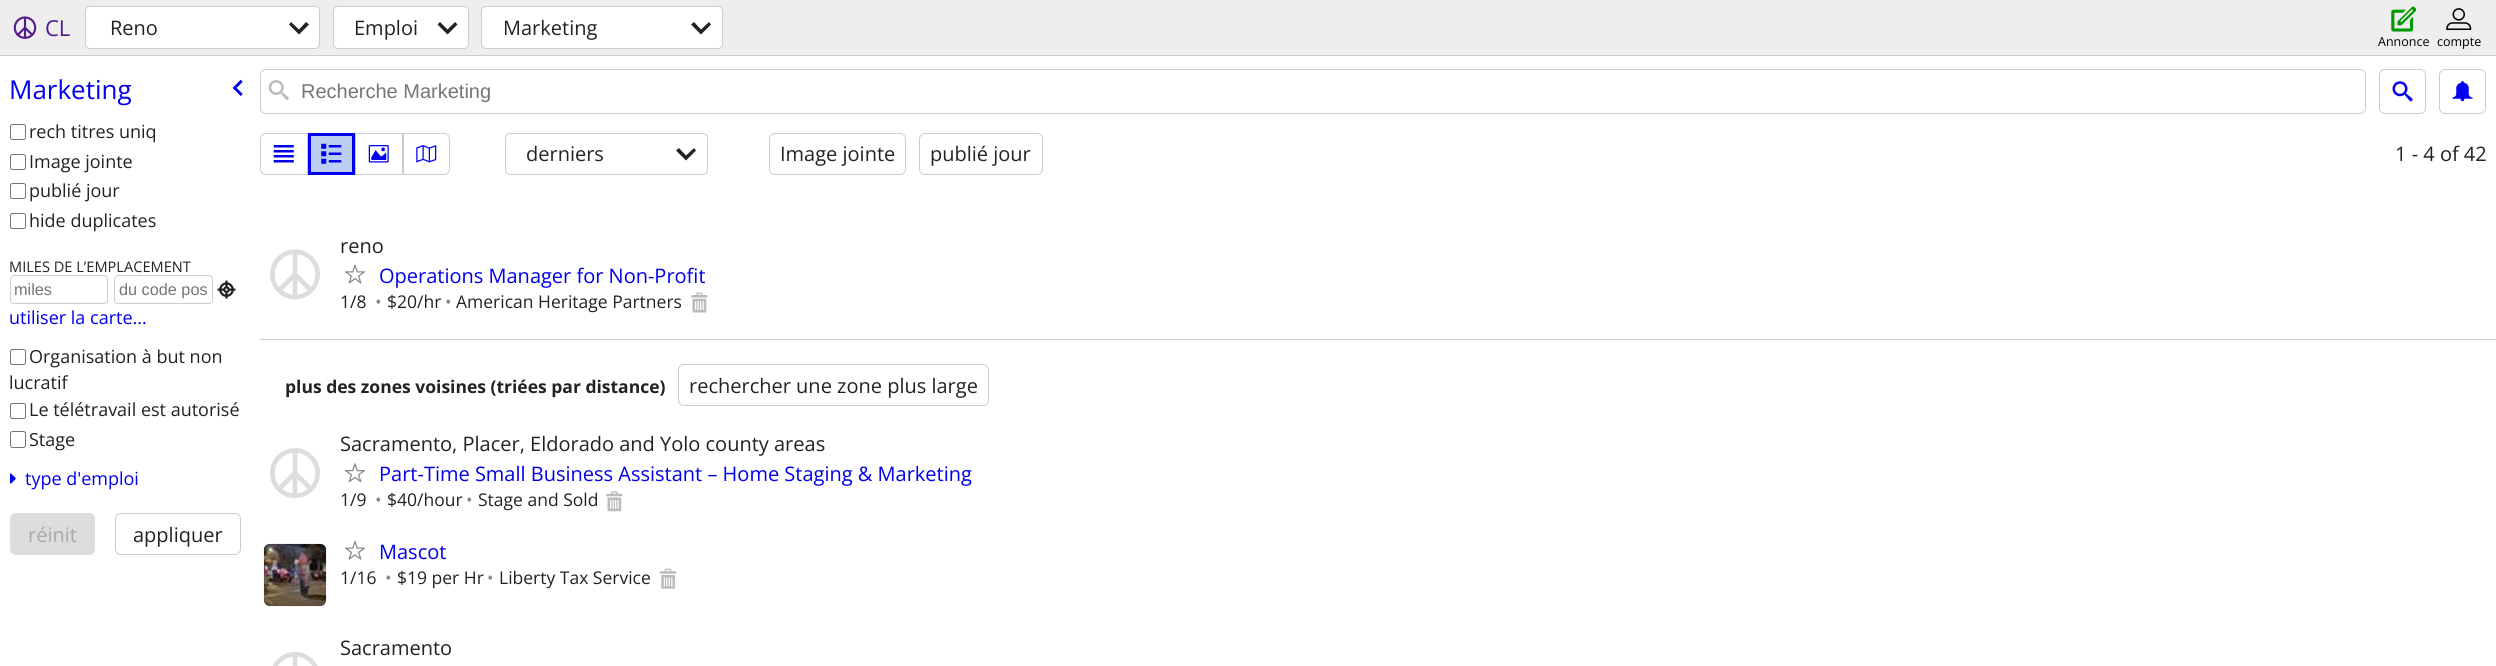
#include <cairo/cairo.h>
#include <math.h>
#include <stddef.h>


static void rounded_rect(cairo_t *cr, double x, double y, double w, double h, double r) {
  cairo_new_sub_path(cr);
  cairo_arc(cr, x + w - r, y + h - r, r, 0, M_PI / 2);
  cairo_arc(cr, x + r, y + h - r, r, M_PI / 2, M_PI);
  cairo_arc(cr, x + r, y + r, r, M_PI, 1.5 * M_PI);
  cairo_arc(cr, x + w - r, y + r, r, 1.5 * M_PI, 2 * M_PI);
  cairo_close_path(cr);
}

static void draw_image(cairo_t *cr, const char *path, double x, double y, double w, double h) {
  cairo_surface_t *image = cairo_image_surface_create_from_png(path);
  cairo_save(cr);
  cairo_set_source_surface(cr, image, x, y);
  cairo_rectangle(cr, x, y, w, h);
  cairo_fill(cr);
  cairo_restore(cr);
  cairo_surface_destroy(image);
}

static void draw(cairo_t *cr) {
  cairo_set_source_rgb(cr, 1, 1, 1);
  cairo_paint(cr);
  cairo_set_source_rgb(cr, 238 / 255.0, 238 / 255.0, 238 / 255.0);
  cairo_rectangle(cr, 0, 0, 2496, 55);
  cairo_fill(cr);
  cairo_set_source_rgb(cr, 204 / 255.0, 204 / 255.0, 204 / 255.0);
  cairo_rectangle(cr, 0, 55, 2496, 1);
  cairo_fill(cr);
  draw_image(cr, "images/1.png", 13, 16, 24, 23);
  cairo_set_source_rgb(cr, 1, 1, 1);
  rounded_rect(cr, 85.5, 6.5, 234, 42, 4.5);
  cairo_fill_preserve(cr);
  cairo_set_source_rgb(cr, 204 / 255.0, 204 / 255.0, 204 / 255.0);
  cairo_set_line_width(cr, 1);
  cairo_stroke(cr);
  cairo_set_source_rgb(cr, 34 / 255.0, 34 / 255.0, 34 / 255.0);
  cairo_new_path(cr);
  cairo_move_to(cr, 309, 24.5);
  cairo_line_to(cr, 306, 22);
  cairo_line_to(cr, 299, 29.5);
  cairo_line_to(cr, 291, 22);
  cairo_line_to(cr, 289, 24.5);
  cairo_line_to(cr, 299, 34.5);
  cairo_close_path(cr);
  cairo_fill(cr);
  cairo_set_source_rgb(cr, 1, 1, 1);
  rounded_rect(cr, 333.5, 6.5, 135, 42, 4.5);
  cairo_fill_preserve(cr);
  cairo_set_source_rgb(cr, 204 / 255.0, 204 / 255.0, 204 / 255.0);
  cairo_stroke(cr);
  cairo_set_source_rgb(cr, 34 / 255.0, 34 / 255.0, 34 / 255.0);
  cairo_new_path(cr);
  cairo_move_to(cr, 457.5, 24.5);
  cairo_line_to(cr, 455, 22);
  cairo_line_to(cr, 447.5, 29.5);
  cairo_line_to(cr, 440, 22);
  cairo_line_to(cr, 437.5, 24.5);
  cairo_line_to(cr, 447.5, 34.5);
  cairo_close_path(cr);
  cairo_fill(cr);
  cairo_set_source_rgb(cr, 1, 1, 1);
  rounded_rect(cr, 481.5, 6.5, 241, 42, 4.5);
  cairo_fill_preserve(cr);
  cairo_set_source_rgb(cr, 204 / 255.0, 204 / 255.0, 204 / 255.0);
  cairo_stroke(cr);
  cairo_set_source_rgb(cr, 34 / 255.0, 34 / 255.0, 34 / 255.0);
  cairo_new_path(cr);
  cairo_move_to(cr, 711, 24.5);
  cairo_line_to(cr, 709, 22);
  cairo_line_to(cr, 701, 29.5);
  cairo_line_to(cr, 694, 22);
  cairo_line_to(cr, 691, 24.5);
  cairo_line_to(cr, 701, 34.5);
  cairo_close_path(cr);
  cairo_fill(cr);
  draw_image(cr, "images/2.png", 2391, 6, 26, 26);
  draw_image(cr, "images/3.png", 2446, 8, 26, 22);
  draw_image(cr, "images/4.png", 232, 79, 11, 17);
  rounded_rect(cr, 10.5, 124.5, 15, 15, 2);
  cairo_set_source_rgb(cr, 118 / 255.0, 118 / 255.0, 118 / 255.0);
  cairo_stroke(cr);
  rounded_rect(cr, 10.5, 154.5, 15, 15, 2);
  cairo_stroke(cr);
  rounded_rect(cr, 10.5, 183.5, 15, 15, 2);
  cairo_stroke(cr);
  rounded_rect(cr, 10.5, 213.5, 15, 15, 2);
  cairo_stroke(cr);
  rounded_rect(cr, 10.5, 275.5, 97, 28, 3.5);
  cairo_set_source_rgb(cr, 204 / 255.0, 204 / 255.0, 204 / 255.0);
  cairo_stroke(cr);
  rounded_rect(cr, 114.5, 275.5, 98, 28, 3.5);
  cairo_stroke(cr);
  draw_image(cr, "images/5.png", 217, 280, 19, 19);
  rounded_rect(cr, 10.5, 349.5, 15, 15, 2);
  cairo_set_source_rgb(cr, 118 / 255.0, 118 / 255.0, 118 / 255.0);
  cairo_stroke(cr);
  rounded_rect(cr, 10.5, 403.5, 15, 15, 2);
  cairo_stroke(cr);
  rounded_rect(cr, 10.5, 431.5, 15, 16, 2);
  cairo_stroke(cr);
  draw_image(cr, "images/6.png", 10, 473, 6, 11);
  cairo_set_source_rgb(cr, 221 / 255.0, 221 / 255.0, 221 / 255.0);
  rounded_rect(cr, 10.5, 513.5, 84, 41, 5.5);
  cairo_fill_preserve(cr);
  cairo_stroke(cr);
  rounded_rect(cr, 115.5, 513.5, 125, 41, 5.5);
  cairo_set_source_rgb(cr, 204 / 255.0, 204 / 255.0, 204 / 255.0);
  cairo_stroke(cr);
  rounded_rect(cr, 260.5, 69.5, 2105, 44, 5.5);
  cairo_stroke(cr);
  draw_image(cr, "images/7.png", 268, 80, 21, 20);
  rounded_rect(cr, 2379.5, 69.5, 46, 44, 5.5);
  cairo_stroke(cr);
  draw_image(cr, "images/8.png", 2392, 81, 21, 21);
  rounded_rect(cr, 2439.5, 69.5, 46, 44, 5.5);
  cairo_stroke(cr);
  draw_image(cr, "images/9.png", 2452, 81, 21, 21);
  cairo_new_path(cr);
  cairo_move_to(cr, 266, 133.5);
  cairo_line_to(cr, 307.5, 133.5);
  cairo_line_to(cr, 307.5, 174.5);
  cairo_line_to(cr, 266, 174.5);
  cairo_curve_to(cr, 263, 174.5, 260.5, 172, 260.5, 169);
  cairo_line_to(cr, 260.5, 139);
  cairo_curve_to(cr, 260.5, 136, 263, 133.5, 266, 133.5);
  cairo_close_path(cr);
  cairo_stroke(cr);
  draw_image(cr, "images/10.png", 273, 145, 21, 18);
  cairo_set_source_rgb(cr, 186 / 255.0, 207 / 255.0, 242 / 255.0);
  cairo_rectangle(cr, 309.5, 134.5, 44, 39);
  cairo_fill_preserve(cr);
  cairo_set_source_rgb(cr, 0, 0, 238 / 255.0);
  cairo_set_line_width(cr, 3);
  cairo_stroke(cr);
  draw_image(cr, "images/11.png", 321, 143, 21, 21);
  cairo_rectangle(cr, 355.5, 133.5, 47, 41);
  cairo_set_source_rgb(cr, 204 / 255.0, 204 / 255.0, 204 / 255.0);
  cairo_set_line_width(cr, 1);
  cairo_stroke(cr);
  draw_image(cr, "images/12.png", 368, 145, 21, 18);
  cairo_new_path(cr);
  cairo_move_to(cr, 403.5, 133.5);
  cairo_line_to(cr, 444, 133.5);
  cairo_curve_to(cr, 447, 133.5, 449.5, 136, 449.5, 139);
  cairo_line_to(cr, 449.5, 169);
  cairo_curve_to(cr, 449.5, 172, 447, 174.5, 444, 174.5);
  cairo_line_to(cr, 403.5, 174.5);
  cairo_close_path(cr);
  cairo_stroke(cr);
  draw_image(cr, "images/13.png", 416, 145, 21, 18);
  rounded_rect(cr, 505.5, 133.5, 202, 41, 4.5);
  cairo_stroke(cr);
  cairo_set_source_rgb(cr, 34 / 255.0, 34 / 255.0, 34 / 255.0);
  cairo_new_path(cr);
  cairo_move_to(cr, 696, 150.5);
  cairo_line_to(cr, 694, 148);
  cairo_line_to(cr, 686, 155.5);
  cairo_line_to(cr, 679, 148);
  cairo_line_to(cr, 676, 150.5);
  cairo_line_to(cr, 686, 160.5);
  cairo_close_path(cr);
  cairo_fill(cr);
  rounded_rect(cr, 769.5, 133.5, 136, 41, 5.5);
  cairo_set_source_rgb(cr, 204 / 255.0, 204 / 255.0, 204 / 255.0);
  cairo_stroke(cr);
  rounded_rect(cr, 919.5, 133.5, 123, 41, 5.5);
  cairo_stroke(cr);
  draw_image(cr, "images/14.png", 270, 249, 50, 51);
  draw_image(cr, "images/15.png", 345, 264, 20, 20);
  draw_image(cr, "images/16.png", 691, 292, 17, 21);
  cairo_rectangle(cr, 260, 339, 2236, 1);
  cairo_fill(cr);
  rounded_rect(cr, 678.5, 364.5, 310, 41, 5.5);
  cairo_stroke(cr);
  draw_image(cr, "images/17.png", 270, 448, 50, 50);
  draw_image(cr, "images/18.png", 345, 463, 20, 20);
  draw_image(cr, "images/19.png", 606, 491, 17, 21);
  draw_image(cr, "images/20.png", 263, 543, 64, 64);
  draw_image(cr, "images/21.png", 345, 540, 20, 20);
  draw_image(cr, "images/22.png", 660, 568, 17, 21);
  draw_image(cr, "images/23.png", 272, 652, 46, 14);
  cairo_select_font_face(cr, "Open Sans", CAIRO_FONT_SLANT_NORMAL, CAIRO_FONT_WEIGHT_NORMAL);
  cairo_set_font_size(cr, 22);
  cairo_set_source_rgb(cr, 85 / 255.0, 26 / 255.0, 139 / 255.0);
  cairo_move_to(cr, 45, 36);
  cairo_show_text(cr, "CL");
  cairo_set_font_size(cr, 20);
  cairo_set_source_rgb(cr, 34 / 255.0, 34 / 255.0, 34 / 255.0);
  cairo_move_to(cr, 110, 35);
  cairo_show_text(cr, "Reno");
  cairo_move_to(cr, 354, 35);
  cairo_show_text(cr, "Emploi");
  cairo_move_to(cr, 503, 35);
  cairo_show_text(cr, "Marketing");
  cairo_set_font_size(cr, 12.5);
  cairo_set_source_rgb(cr, 0, 0, 0);
  cairo_move_to(cr, 2378, 46);
  cairo_show_text(cr, "Annonce");
  cairo_move_to(cr, 2437, 46);
  cairo_show_text(cr, "compte");
  cairo_set_font_size(cr, 26);
  cairo_set_source_rgb(cr, 0, 0, 238 / 255.0);
  cairo_move_to(cr, 9, 99);
  cairo_show_text(cr, "Marketing");
  cairo_set_font_size(cr, 18);
  cairo_set_source_rgb(cr, 34 / 255.0, 34 / 255.0, 34 / 255.0);
  cairo_move_to(cr, 29, 138);
  cairo_show_text(cr, "rech titres uniq");
  cairo_move_to(cr, 29, 168);
  cairo_show_text(cr, "Image jointe");
  cairo_move_to(cr, 29, 197);
  cairo_show_text(cr, "publié jour");
  cairo_move_to(cr, 29, 227);
  cairo_show_text(cr, "hide duplicates");
  cairo_set_font_size(cr, 14.6);
  cairo_move_to(cr, 9, 272);
  cairo_show_text(cr, "MILES DE L’EMPLACEMENT");
  cairo_select_font_face(cr, "Liberation Sans", CAIRO_FONT_SLANT_NORMAL, CAIRO_FONT_WEIGHT_NORMAL);
  cairo_set_font_size(cr, 16.25);
  cairo_set_source_rgb(cr, 117 / 255.0, 117 / 255.0, 117 / 255.0);
  cairo_move_to(cr, 14, 295);
  cairo_show_text(cr, "miles");
  cairo_move_to(cr, 119, 295);
  cairo_show_text(cr, "du code pos");
  cairo_select_font_face(cr, "Open Sans", CAIRO_FONT_SLANT_NORMAL, CAIRO_FONT_WEIGHT_NORMAL);
  cairo_set_font_size(cr, 18);
  cairo_set_source_rgb(cr, 0, 0, 238 / 255.0);
  cairo_move_to(cr, 9, 324);
  cairo_show_text(cr, "utiliser la carte...");
  cairo_set_source_rgb(cr, 34 / 255.0, 34 / 255.0, 34 / 255.0);
  cairo_move_to(cr, 29, 363);
  cairo_show_text(cr, "Organisation à but non");
  cairo_move_to(cr, 9, 389);
  cairo_show_text(cr, "lucratif");
  cairo_move_to(cr, 29, 416);
  cairo_show_text(cr, "Le télétravail est autorisé");
  cairo_move_to(cr, 29, 446);
  cairo_show_text(cr, "Stage");
  cairo_set_source_rgb(cr, 0, 0, 238 / 255.0);
  cairo_move_to(cr, 25, 485);
  cairo_show_text(cr, "type d'emploi");
  cairo_set_font_size(cr, 20);
  cairo_set_source_rgb(cr, 169 / 255.0, 169 / 255.0, 169 / 255.0);
  cairo_move_to(cr, 28, 542);
  cairo_show_text(cr, "réinit");
  cairo_set_source_rgb(cr, 34 / 255.0, 34 / 255.0, 34 / 255.0);
  cairo_move_to(cr, 133, 542);
  cairo_show_text(cr, "appliquer");
  cairo_select_font_face(cr, "Liberation Sans", CAIRO_FONT_SLANT_NORMAL, CAIRO_FONT_WEIGHT_NORMAL);
  cairo_set_source_rgb(cr, 117 / 255.0, 117 / 255.0, 117 / 255.0);
  cairo_move_to(cr, 301, 98);
  cairo_show_text(cr, "Recherche Marketing");
  cairo_select_font_face(cr, "Open Sans", CAIRO_FONT_SLANT_NORMAL, CAIRO_FONT_WEIGHT_NORMAL);
  cairo_set_source_rgb(cr, 34 / 255.0, 34 / 255.0, 34 / 255.0);
  cairo_move_to(cr, 526, 161);
  cairo_show_text(cr, "derniers");
  cairo_move_to(cr, 780, 161);
  cairo_show_text(cr, "Image jointe");
  cairo_move_to(cr, 930, 161);
  cairo_show_text(cr, "publié jour");
  cairo_move_to(cr, 2395, 161);
  cairo_show_text(cr, "1 - 4 of 42");
  cairo_move_to(cr, 340, 253);
  cairo_show_text(cr, "reno");
  cairo_set_source_rgb(cr, 0, 0, 238 / 255.0);
  cairo_move_to(cr, 379, 283);
  cairo_show_text(cr, "Operations Manager for Non-Profit");
  cairo_set_font_size(cr, 17.5);
  cairo_set_source_rgb(cr, 34 / 255.0, 34 / 255.0, 34 / 255.0);
  cairo_move_to(cr, 340, 308);
  cairo_show_text(cr, "1/8");
  cairo_set_source_rgb(cr, 136 / 255.0, 136 / 255.0, 136 / 255.0);
  cairo_move_to(cr, 375, 308);
  cairo_show_text(cr, "•");
  cairo_set_source_rgb(cr, 34 / 255.0, 34 / 255.0, 34 / 255.0);
  cairo_move_to(cr, 387, 308);
  cairo_show_text(cr, "$20/hr");
  cairo_set_source_rgb(cr, 136 / 255.0, 136 / 255.0, 136 / 255.0);
  cairo_move_to(cr, 445, 308);
  cairo_show_text(cr, "•");
  cairo_set_source_rgb(cr, 34 / 255.0, 34 / 255.0, 34 / 255.0);
  cairo_move_to(cr, 456, 308);
  cairo_show_text(cr, "American Heritage Partners");
  cairo_select_font_face(cr, "Open Sans", CAIRO_FONT_SLANT_NORMAL, CAIRO_FONT_WEIGHT_BOLD);
  cairo_move_to(cr, 285, 393);
  cairo_show_text(cr, "plus des zones voisines (triées par distance)");
  cairo_select_font_face(cr, "Open Sans", CAIRO_FONT_SLANT_NORMAL, CAIRO_FONT_WEIGHT_NORMAL);
  cairo_set_font_size(cr, 20);
  cairo_move_to(cr, 689, 393);
  cairo_show_text(cr, "rechercher une zone plus large");
  cairo_move_to(cr, 340, 451);
  cairo_show_text(cr, "Sacramento, Placer, Eldorado and Yolo county areas");
  cairo_set_source_rgb(cr, 0, 0, 238 / 255.0);
  cairo_move_to(cr, 379, 481);
  cairo_show_text(cr, "Part-Time Small Business Assistant – Home Staging & Marketing");
  cairo_set_font_size(cr, 17.5);
  cairo_set_source_rgb(cr, 34 / 255.0, 34 / 255.0, 34 / 255.0);
  cairo_move_to(cr, 340, 506);
  cairo_show_text(cr, "1/9");
  cairo_set_source_rgb(cr, 136 / 255.0, 136 / 255.0, 136 / 255.0);
  cairo_move_to(cr, 375, 506);
  cairo_show_text(cr, "•");
  cairo_set_source_rgb(cr, 34 / 255.0, 34 / 255.0, 34 / 255.0);
  cairo_move_to(cr, 387, 506);
  cairo_show_text(cr, "$40/hour");
  cairo_set_source_rgb(cr, 136 / 255.0, 136 / 255.0, 136 / 255.0);
  cairo_move_to(cr, 466, 506);
  cairo_show_text(cr, "•");
  cairo_set_source_rgb(cr, 34 / 255.0, 34 / 255.0, 34 / 255.0);
  cairo_move_to(cr, 478, 506);
  cairo_show_text(cr, "Stage and Sold");
  cairo_set_font_size(cr, 20);
  cairo_set_source_rgb(cr, 0, 0, 238 / 255.0);
  cairo_move_to(cr, 379, 559);
  cairo_show_text(cr, "Mascot");
  cairo_set_font_size(cr, 17.5);
  cairo_set_source_rgb(cr, 34 / 255.0, 34 / 255.0, 34 / 255.0);
  cairo_move_to(cr, 340, 584);
  cairo_show_text(cr, "1/16");
  cairo_set_source_rgb(cr, 136 / 255.0, 136 / 255.0, 136 / 255.0);
  cairo_move_to(cr, 385, 584);
  cairo_show_text(cr, "•");
  cairo_set_source_rgb(cr, 34 / 255.0, 34 / 255.0, 34 / 255.0);
  cairo_move_to(cr, 397, 584);
  cairo_show_text(cr, "$19 per Hr");
  cairo_set_source_rgb(cr, 136 / 255.0, 136 / 255.0, 136 / 255.0);
  cairo_move_to(cr, 487, 584);
  cairo_show_text(cr, "•");
  cairo_set_source_rgb(cr, 34 / 255.0, 34 / 255.0, 34 / 255.0);
  cairo_move_to(cr, 499, 584);
  cairo_show_text(cr, "Liberty Tax Service");
  cairo_set_font_size(cr, 20);
  cairo_move_to(cr, 340, 655);
  cairo_show_text(cr, "Sacramento");
}

int main(void) {
  cairo_surface_t *surface = cairo_image_surface_create(CAIRO_FORMAT_RGB24, 2496, 666);
  cairo_t *cr = cairo_create(surface);
  cairo_font_options_t *options = cairo_font_options_create();
  cairo_font_options_set_hint_metrics(options, CAIRO_HINT_METRICS_OFF);
  cairo_font_options_set_hint_style(options, CAIRO_HINT_STYLE_NONE);
  cairo_set_font_options(cr, options);
  cairo_set_miter_limit(cr, 4);
  draw(cr);
  cairo_surface_write_to_png(surface, "out.png");
  cairo_font_options_destroy(options);
  cairo_destroy(cr);
  cairo_surface_destroy(surface);
  return 0;
}
